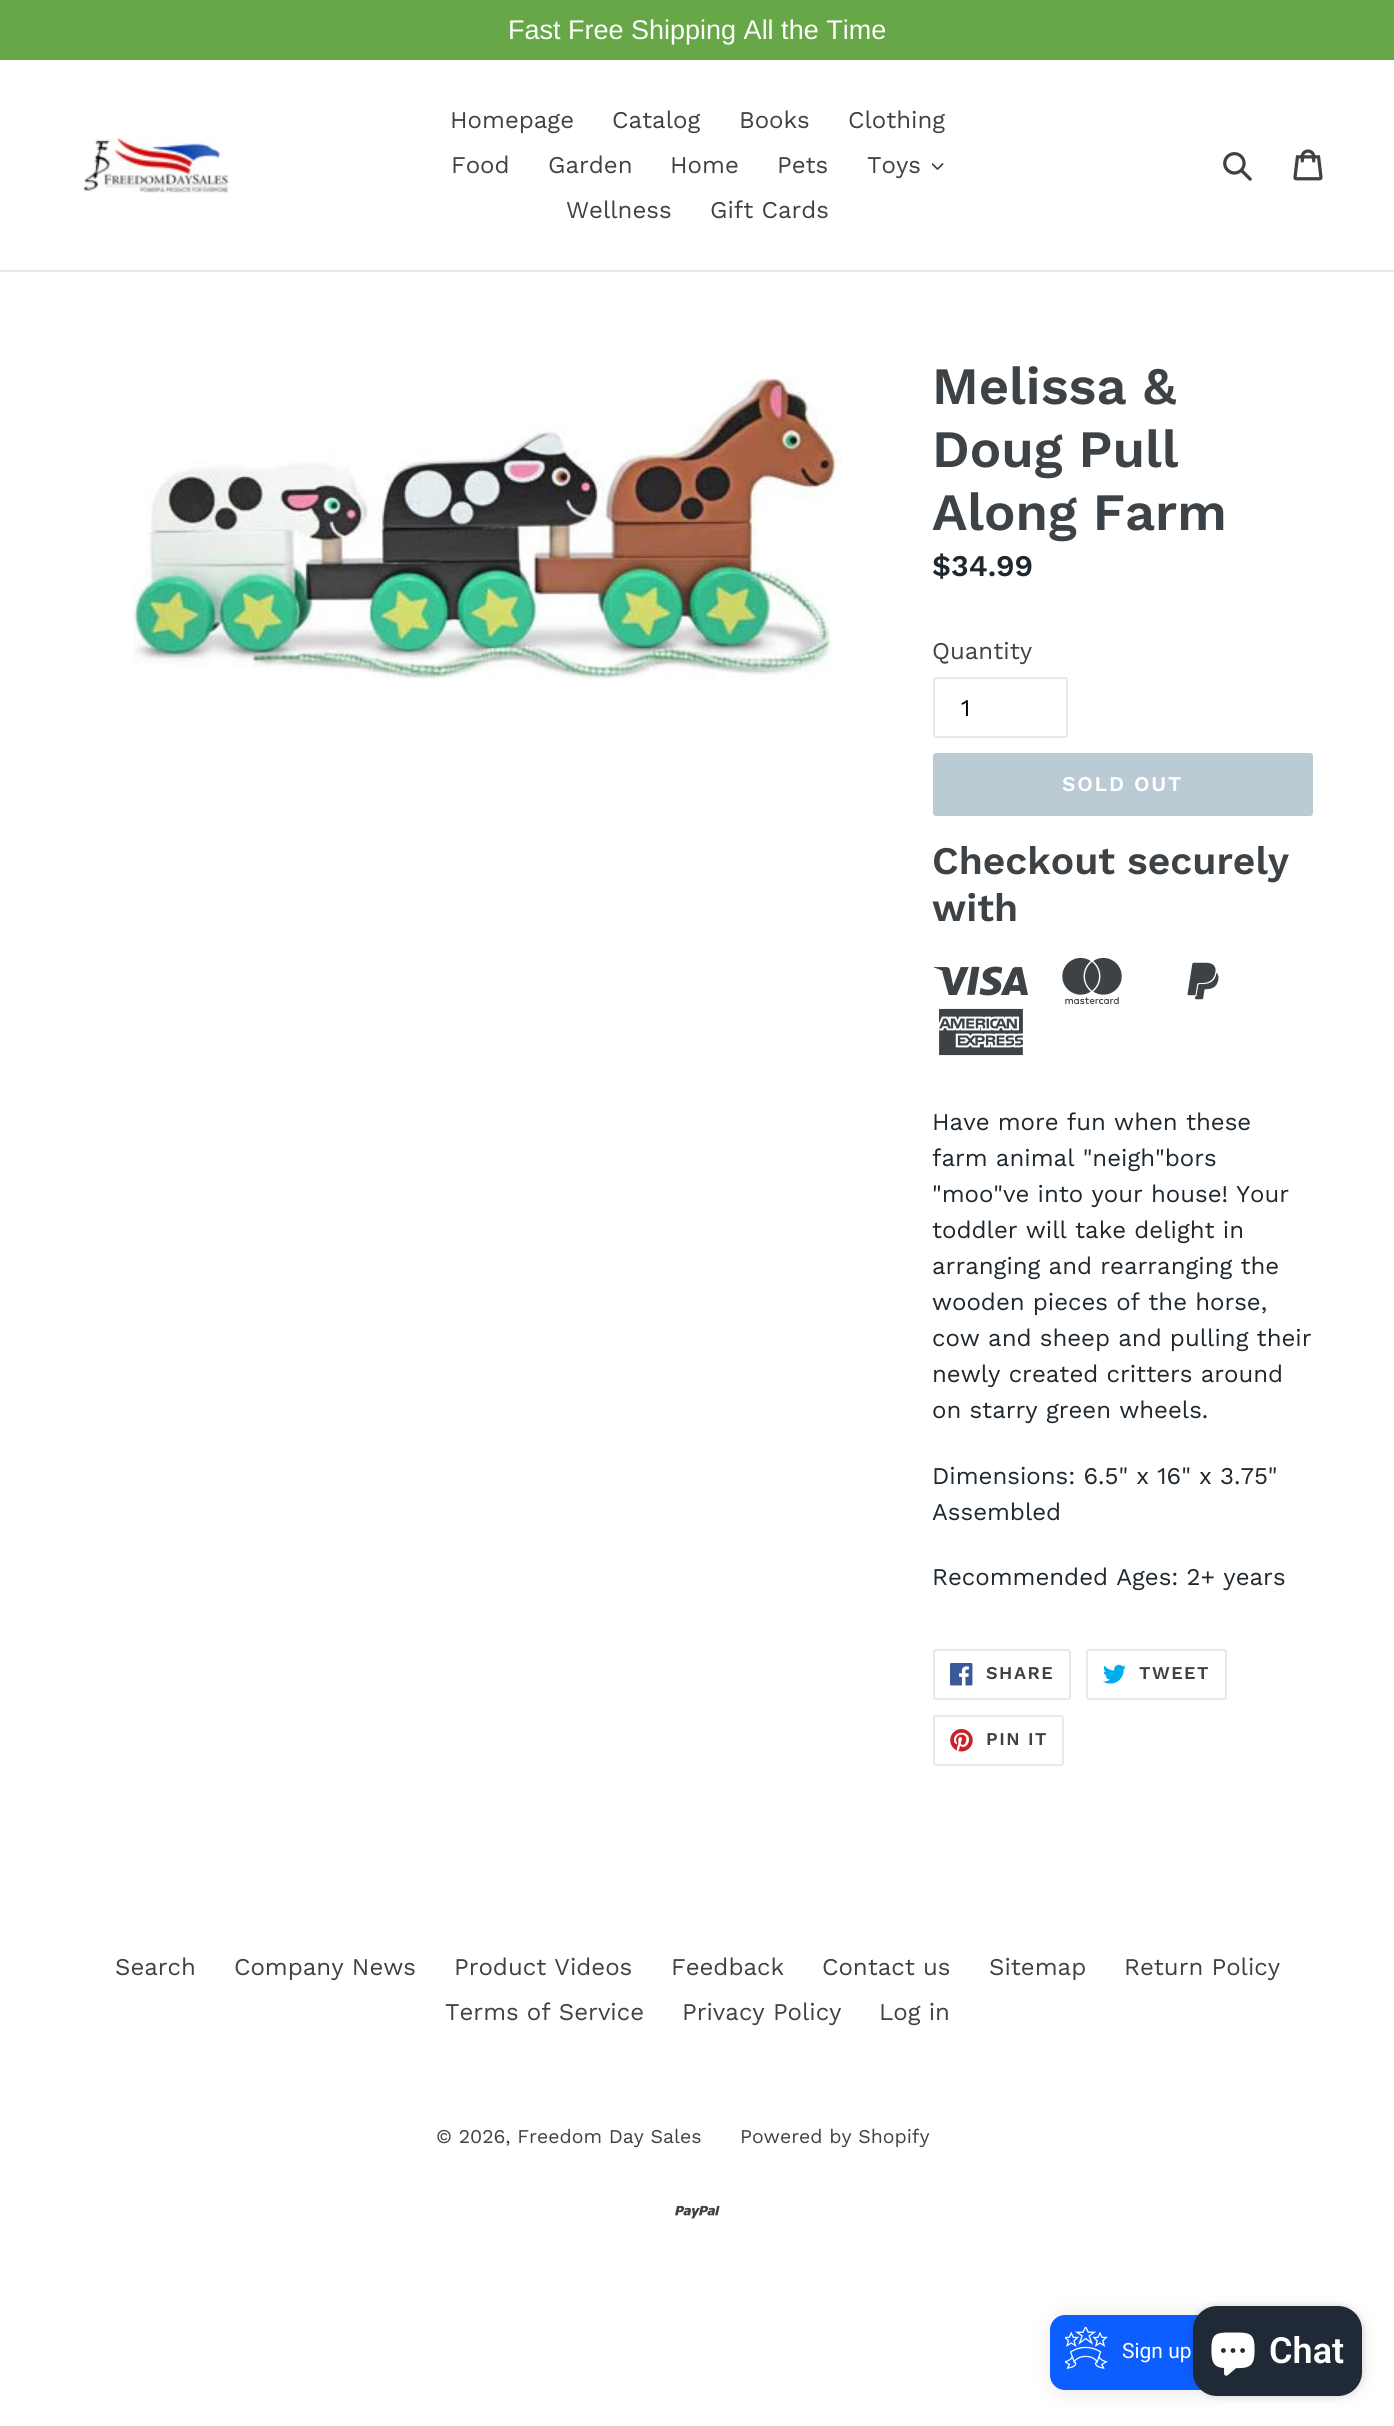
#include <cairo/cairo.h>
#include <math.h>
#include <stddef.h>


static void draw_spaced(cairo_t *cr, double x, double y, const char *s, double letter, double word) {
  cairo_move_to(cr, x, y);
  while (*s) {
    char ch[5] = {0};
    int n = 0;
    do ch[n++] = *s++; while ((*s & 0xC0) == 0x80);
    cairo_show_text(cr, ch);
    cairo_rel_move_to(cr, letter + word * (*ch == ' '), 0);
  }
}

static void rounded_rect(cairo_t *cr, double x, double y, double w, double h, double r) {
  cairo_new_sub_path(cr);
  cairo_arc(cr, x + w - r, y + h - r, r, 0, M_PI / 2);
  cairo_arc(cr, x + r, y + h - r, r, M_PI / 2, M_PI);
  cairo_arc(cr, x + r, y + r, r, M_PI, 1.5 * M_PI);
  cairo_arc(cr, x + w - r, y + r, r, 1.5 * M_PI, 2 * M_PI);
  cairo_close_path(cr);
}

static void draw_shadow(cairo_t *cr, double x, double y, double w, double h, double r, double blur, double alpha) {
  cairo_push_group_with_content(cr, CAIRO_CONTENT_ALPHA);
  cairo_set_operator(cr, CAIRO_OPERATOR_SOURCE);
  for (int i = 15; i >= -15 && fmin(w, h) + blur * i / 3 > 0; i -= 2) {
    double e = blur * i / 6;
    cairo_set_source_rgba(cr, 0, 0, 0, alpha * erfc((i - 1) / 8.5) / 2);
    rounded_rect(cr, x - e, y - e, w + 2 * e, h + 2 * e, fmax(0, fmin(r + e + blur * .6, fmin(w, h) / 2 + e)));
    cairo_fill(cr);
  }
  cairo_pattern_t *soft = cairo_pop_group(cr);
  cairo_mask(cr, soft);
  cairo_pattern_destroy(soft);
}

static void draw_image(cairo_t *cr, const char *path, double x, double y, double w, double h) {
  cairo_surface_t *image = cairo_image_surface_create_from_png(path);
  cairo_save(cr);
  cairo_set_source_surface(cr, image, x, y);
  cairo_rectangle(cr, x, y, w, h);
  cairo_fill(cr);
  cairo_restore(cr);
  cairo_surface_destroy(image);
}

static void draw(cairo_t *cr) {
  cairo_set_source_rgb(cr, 1, 1, 1);
  cairo_paint(cr);
  cairo_set_source_rgb(cr, 103 / 255.0, 167 / 255.0, 71 / 255.0);
  cairo_rectangle(cr, 0, 0, 1394, 60);
  cairo_fill(cr);
  cairo_set_source_rgb(cr, 232 / 255.0, 233 / 255.0, 235 / 255.0);
  cairo_rectangle(cr, 0, 270, 1394, 2);
  cairo_fill(cr);
  draw_image(cr, "images/1.png", 83, 138, 146, 56);
  draw_image(cr, "images/2.png", 932, 163, 12, 7);
  draw_image(cr, "images/3.png", 1223, 152, 29, 29);
  draw_image(cr, "images/4.png", 1293, 149, 30, 32);
  draw_image(cr, "images/5.png", 133, 378, 709, 302);
  rounded_rect(cr, 934, 678, 133, 59, 2);
  cairo_stroke(cr);
  cairo_set_source_rgb(cr, 187 / 255.0, 203 / 255.0, 212 / 255.0);
  rounded_rect(cr, 933, 753, 380, 63, 3);
  cairo_fill(cr);
  draw_image(cr, "images/6.png", 934, 966, 94, 30);
  draw_image(cr, "images/7.png", 1062, 957, 60, 48);
  draw_image(cr, "images/8.png", 1187, 962, 32, 38);
  draw_image(cr, "images/9.png", 939, 1008, 84, 48);
  rounded_rect(cr, 934, 1650, 136, 49, 2);
  cairo_set_source_rgb(cr, 232 / 255.0, 233 / 255.0, 235 / 255.0);
  cairo_stroke(cr);
  draw_image(cr, "images/10.png", 950, 1663, 23, 23);
  rounded_rect(cr, 1087, 1650, 139, 49, 2);
  cairo_stroke(cr);
  draw_image(cr, "images/11.png", 1103, 1664, 23, 20);
  rounded_rect(cr, 934, 1716, 129, 49, 2);
  cairo_stroke(cr);
  draw_image(cr, "images/12.png", 950, 1729, 23, 23);
  draw_image(cr, "images/13.png", 675, 2205, 45, 14);
  cairo_set_source_rgb(cr, 0, 0, 0);
  draw_shadow(cr, 1052, 2316, 307, 75, 15, 11, 0.1);
  cairo_set_source_rgb(cr, 13 / 255.0, 94 / 255.0, 1);
  rounded_rect(cr, 1050, 2315, 308, 75, 15);
  cairo_fill(cr);
  draw_image(cr, "images/14.png", 1065, 2327, 43, 42);
  cairo_set_source_rgb(cr, 0, 0, 0);
  draw_shadow(cr, 1193, 2306, 169, 90, 24, 4, 0.15);
  cairo_set_source_rgb(cr, 32 / 255.0, 42 / 255.0, 54 / 255.0);
  rounded_rect(cr, 1193, 2306, 169, 90, 24);
  cairo_fill(cr);
  draw_image(cr, "images/15.png", 1211, 2332, 44, 44);
  cairo_select_font_face(cr, "Liberation Sans", CAIRO_FONT_SLANT_NORMAL, CAIRO_FONT_WEIGHT_NORMAL);
  cairo_set_font_size(cr, 27);
  cairo_set_source_rgb(cr, 1, 1, 1);
  cairo_move_to(cr, 508, 39);
  cairo_show_text(cr, "Fast Free Shipping All the Time");
  cairo_select_font_face(cr, "Work Sans", CAIRO_FONT_SLANT_NORMAL, CAIRO_FONT_WEIGHT_NORMAL);
  cairo_set_font_size(cr, 24);
  cairo_set_source_rgb(cr, 61 / 255.0, 66 / 255.0, 70 / 255.0);
  cairo_move_to(cr, 450, 128);
  cairo_show_text(cr, "Homepage");
  cairo_move_to(cr, 612, 128);
  cairo_show_text(cr, "Catalog");
  cairo_move_to(cr, 739, 128);
  cairo_show_text(cr, "Books");
  cairo_move_to(cr, 848, 128);
  cairo_show_text(cr, "Clothing");
  cairo_move_to(cr, 451, 173);
  cairo_show_text(cr, "Food");
  cairo_move_to(cr, 548, 173);
  cairo_show_text(cr, "Garden");
  cairo_move_to(cr, 670, 173);
  cairo_show_text(cr, "Home");
  cairo_move_to(cr, 777, 173);
  cairo_show_text(cr, "Pets");
  cairo_move_to(cr, 867, 173);
  cairo_show_text(cr, "Toys");
  cairo_move_to(cr, 566, 218);
  cairo_show_text(cr, "Wellness");
  cairo_move_to(cr, 710, 218);
  cairo_show_text(cr, "Gift Cards");
  cairo_select_font_face(cr, "Work Sans SemiBold", CAIRO_FONT_SLANT_NORMAL, CAIRO_FONT_WEIGHT_NORMAL);
  cairo_set_font_size(cr, 52.5);
  cairo_move_to(cr, 932, 404);
  cairo_show_text(cr, "Melissa &");
  cairo_move_to(cr, 932, 467);
  cairo_show_text(cr, "Doug Pull");
  cairo_move_to(cr, 932, 530);
  cairo_show_text(cr, "Along Farm");
  cairo_set_font_size(cr, 30);
  cairo_set_source_rgb(cr, 31 / 255.0, 40 / 255.0, 47 / 255.0);
  cairo_move_to(cr, 932, 576);
  cairo_show_text(cr, "$34.99");
  cairo_select_font_face(cr, "Work Sans", CAIRO_FONT_SLANT_NORMAL, CAIRO_FONT_WEIGHT_NORMAL);
  cairo_set_font_size(cr, 24);
  cairo_set_source_rgb(cr, 61 / 255.0, 66 / 255.0, 70 / 255.0);
  cairo_move_to(cr, 932, 659);
  cairo_show_text(cr, "Quantity");
  cairo_set_source_rgb(cr, 0, 0, 0);
  cairo_move_to(cr, 961, 716);
  cairo_show_text(cr, "1");
  cairo_select_font_face(cr, "Work Sans SemiBold", CAIRO_FONT_SLANT_NORMAL, CAIRO_FONT_WEIGHT_NORMAL);
  cairo_set_font_size(cr, 21);
  cairo_set_source_rgb(cr, 1, 1, 1);
  draw_spaced(cr, 1062, 791, "SOLD OUT", 1.75, 0);
  cairo_set_font_size(cr, 39);
  cairo_set_source_rgb(cr, 61 / 255.0, 66 / 255.0, 70 / 255.0);
  cairo_move_to(cr, 932, 874);
  cairo_show_text(cr, "Checkout securely");
  cairo_move_to(cr, 932, 921);
  cairo_show_text(cr, "with");
  cairo_select_font_face(cr, "Work Sans", CAIRO_FONT_SLANT_NORMAL, CAIRO_FONT_WEIGHT_NORMAL);
  cairo_set_font_size(cr, 24);
  cairo_set_source_rgb(cr, 31 / 255.0, 40 / 255.0, 47 / 255.0);
  cairo_move_to(cr, 932, 1130);
  cairo_show_text(cr, "Have more fun when these");
  cairo_move_to(cr, 932, 1166);
  cairo_show_text(cr, "farm animal \"neigh\"bors");
  cairo_move_to(cr, 932, 1202);
  cairo_show_text(cr, "\"moo\"ve into your house! Your");
  cairo_move_to(cr, 932, 1238);
  cairo_show_text(cr, "toddler will take delight in");
  cairo_move_to(cr, 932, 1274);
  cairo_show_text(cr, "arranging and rearranging the");
  cairo_move_to(cr, 932, 1310);
  cairo_show_text(cr, "wooden pieces of the horse,");
  cairo_move_to(cr, 932, 1346);
  cairo_show_text(cr, "cow and sheep and pulling their");
  cairo_move_to(cr, 932, 1382);
  cairo_show_text(cr, "newly created critters around");
  cairo_move_to(cr, 932, 1418);
  cairo_show_text(cr, "on starry green wheels.");
  cairo_move_to(cr, 932, 1484);
  cairo_show_text(cr, "Dimensions: 6.5\" x 16\" x 3.75\"");
  cairo_move_to(cr, 932, 1520);
  cairo_show_text(cr, "Assembled");
  cairo_move_to(cr, 932, 1585);
  cairo_show_text(cr, "Recommended Ages: 2+ years");
  cairo_select_font_face(cr, "Work Sans SemiBold", CAIRO_FONT_SLANT_NORMAL, CAIRO_FONT_WEIGHT_NORMAL);
  cairo_set_font_size(cr, 18);
  cairo_set_source_rgb(cr, 61 / 255.0, 66 / 255.0, 70 / 255.0);
  draw_spaced(cr, 986, 1679, "SHARE", 1.5, 0);
  draw_spaced(cr, 1139, 1679, "TWEET", 1.5, 0);
  draw_spaced(cr, 986, 1745, "PIN IT", 1.5, 0);
  cairo_select_font_face(cr, "Work Sans", CAIRO_FONT_SLANT_NORMAL, CAIRO_FONT_WEIGHT_NORMAL);
  cairo_set_font_size(cr, 24);
  cairo_move_to(cr, 115, 1975);
  cairo_show_text(cr, "Search");
  cairo_move_to(cr, 234, 1975);
  cairo_show_text(cr, "Company News");
  cairo_move_to(cr, 454, 1975);
  cairo_show_text(cr, "Product Videos");
  cairo_move_to(cr, 671, 1975);
  cairo_show_text(cr, "Feedback");
  cairo_move_to(cr, 822, 1975);
  cairo_show_text(cr, "Contact us");
  cairo_move_to(cr, 989, 1975);
  cairo_show_text(cr, "Sitemap");
  cairo_move_to(cr, 1124, 1975);
  cairo_show_text(cr, "Return Policy");
  cairo_move_to(cr, 445, 2020);
  cairo_show_text(cr, "Terms of Service");
  cairo_move_to(cr, 682, 2020);
  cairo_show_text(cr, "Privacy Policy");
  cairo_move_to(cr, 879, 2020);
  cairo_show_text(cr, "Log in");
  cairo_set_font_size(cr, 19.5);
  cairo_move_to(cr, 436, 2143);
  cairo_show_text(cr, "© 2026, Freedom Day Sales");
  cairo_move_to(cr, 740, 2143);
  cairo_show_text(cr, "Powered by Shopify");
  cairo_select_font_face(cr, "Roboto", CAIRO_FONT_SLANT_NORMAL, CAIRO_FONT_WEIGHT_NORMAL);
  cairo_set_font_size(cr, 21);
  cairo_set_source_rgb(cr, 1, 1, 1);
  cairo_move_to(cr, 1122, 2358);
  cairo_show_text(cr, "Sign up");
  cairo_select_font_face(cr, "Roboto SemiBold", CAIRO_FONT_SLANT_NORMAL, CAIRO_FONT_WEIGHT_NORMAL);
  cairo_set_font_size(cr, 36);
  cairo_move_to(cr, 1269, 2363);
  cairo_show_text(cr, "Chat");
}

int main(void) {
  cairo_surface_t *surface = cairo_image_surface_create(CAIRO_FORMAT_RGB24, 1394, 2426);
  cairo_t *cr = cairo_create(surface);
  cairo_font_options_t *options = cairo_font_options_create();
  cairo_font_options_set_hint_metrics(options, CAIRO_HINT_METRICS_OFF);
  cairo_font_options_set_hint_style(options, CAIRO_HINT_STYLE_NONE);
  cairo_set_font_options(cr, options);
  cairo_set_miter_limit(cr, 4);
  draw(cr);
  cairo_surface_write_to_png(surface, "out.png");
  cairo_font_options_destroy(options);
  cairo_destroy(cr);
  cairo_surface_destroy(surface);
  return 0;
}
